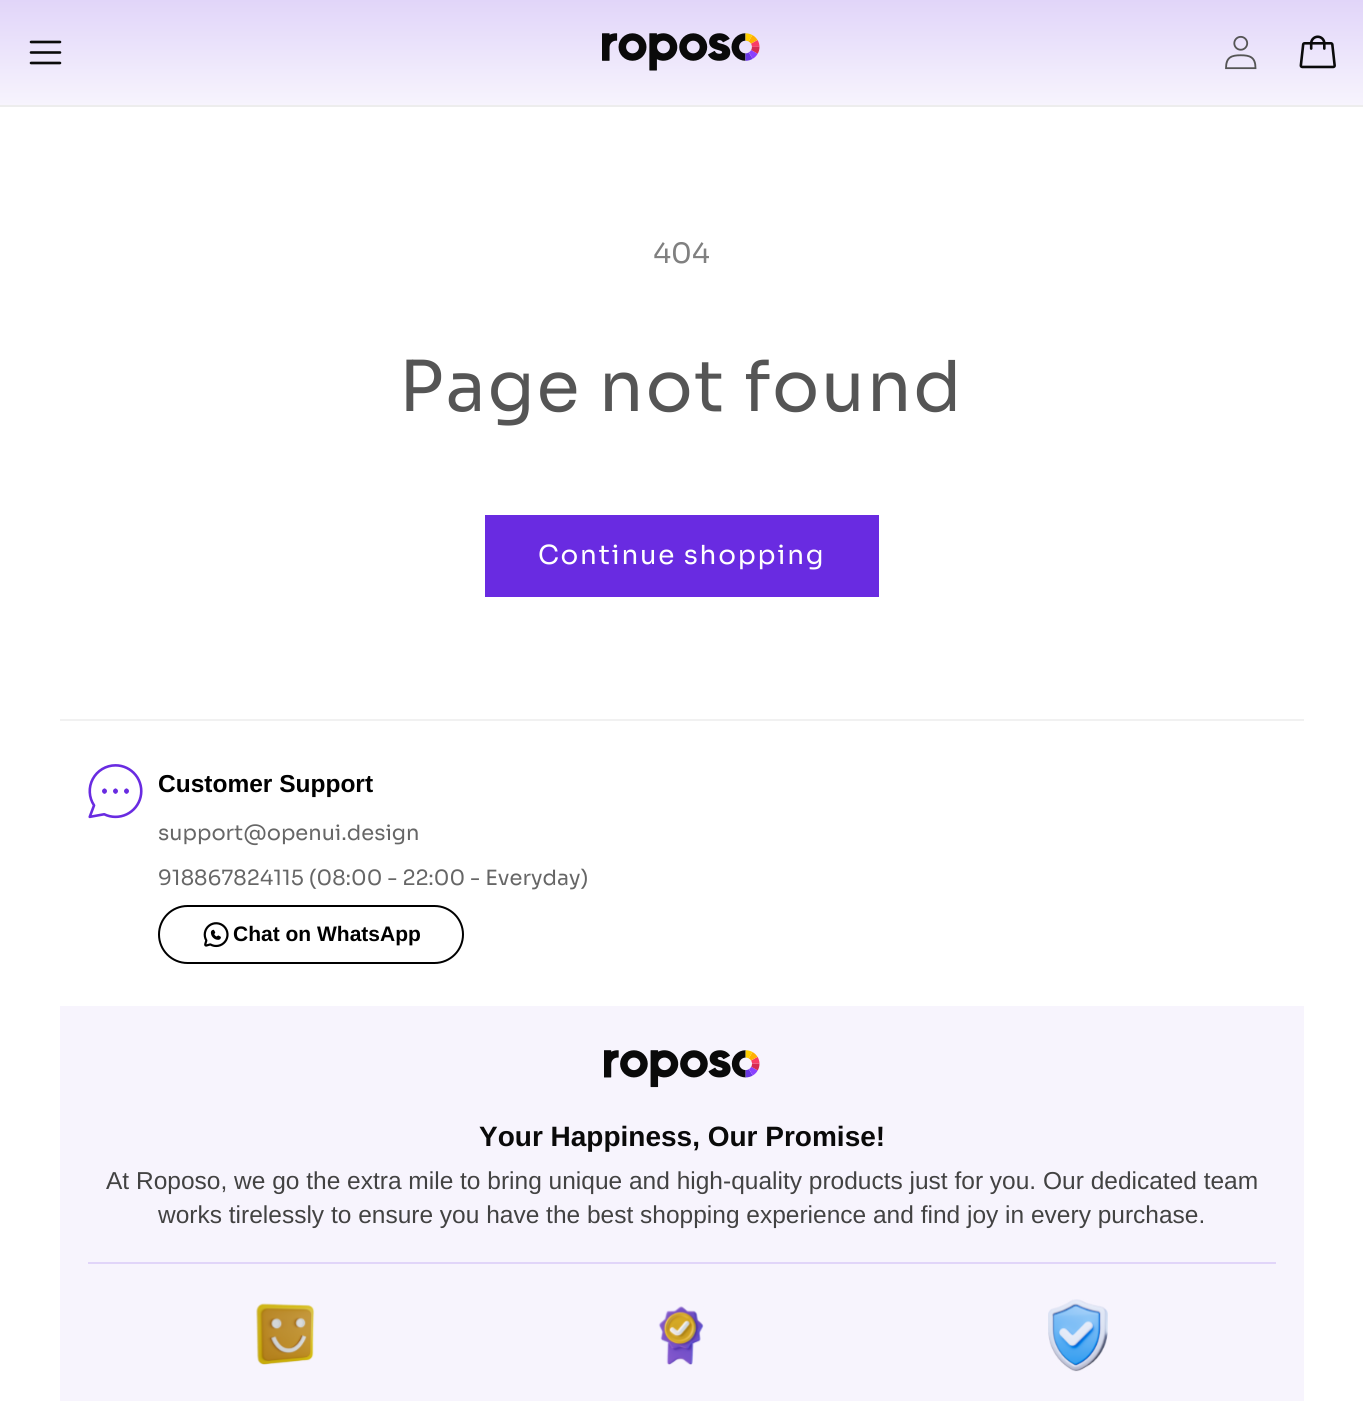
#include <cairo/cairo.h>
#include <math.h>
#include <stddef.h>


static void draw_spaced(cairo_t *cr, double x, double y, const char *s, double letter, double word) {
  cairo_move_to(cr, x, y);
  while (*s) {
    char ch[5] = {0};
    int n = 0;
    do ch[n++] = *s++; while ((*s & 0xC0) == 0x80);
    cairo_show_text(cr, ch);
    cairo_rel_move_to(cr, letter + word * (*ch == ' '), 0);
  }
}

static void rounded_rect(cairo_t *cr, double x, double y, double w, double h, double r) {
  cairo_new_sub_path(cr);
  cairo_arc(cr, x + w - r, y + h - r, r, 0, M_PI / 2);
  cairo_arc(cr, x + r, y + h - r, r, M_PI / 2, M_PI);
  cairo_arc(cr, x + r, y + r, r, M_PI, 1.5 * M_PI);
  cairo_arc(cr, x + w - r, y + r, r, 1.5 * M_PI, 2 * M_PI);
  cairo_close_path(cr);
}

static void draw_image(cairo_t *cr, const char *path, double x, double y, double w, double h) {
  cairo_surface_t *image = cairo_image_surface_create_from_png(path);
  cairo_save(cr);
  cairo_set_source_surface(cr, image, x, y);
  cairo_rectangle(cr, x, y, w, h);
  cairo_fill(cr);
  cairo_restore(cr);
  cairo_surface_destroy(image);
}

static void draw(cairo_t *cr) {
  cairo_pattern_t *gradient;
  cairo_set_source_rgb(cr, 1, 1, 1);
  cairo_paint(cr);
  gradient = cairo_pattern_create_linear(682, 0, 682, 105);
  cairo_pattern_add_color_stop_rgba(gradient, 0, 225 / 255.0, 213 / 255.0, 249 / 255.0, 1);
  cairo_pattern_add_color_stop_rgba(gradient, 1, 247 / 255.0, 244 / 255.0, 253 / 255.0, 1);
  cairo_set_source(cr, gradient);
  cairo_pattern_destroy(gradient);
  cairo_rectangle(cr, 0, 0, 1363, 105);
  cairo_fill(cr);
  cairo_set_source_rgb(cr, 237 / 255.0, 237 / 255.0, 237 / 255.0);
  cairo_rectangle(cr, 0, 105, 1363, 2);
  cairo_fill(cr);
  cairo_new_path(cr);
  cairo_move_to(cr, 31, 52.5);
  cairo_line_to(cr, 60, 52.5);
  cairo_move_to(cr, 31, 42);
  cairo_line_to(cr, 60, 42);
  cairo_move_to(cr, 31, 63);
  cairo_line_to(cr, 60, 63);
  cairo_set_source_rgb(cr, 10 / 255.0, 10 / 255.0, 10 / 255.0);
  cairo_set_line_width(cr, 2.6);
  cairo_set_line_cap(cr, CAIRO_LINE_CAP_ROUND);
  cairo_set_line_join(cr, CAIRO_LINE_JOIN_ROUND);
  cairo_stroke(cr);
  draw_image(cr, "images/1.png", 602, 33, 158, 38);
  draw_image(cr, "images/2.png", 1225, 35, 32, 35);
  draw_image(cr, "images/3.png", 1299, 35, 37, 34);
  cairo_set_source_rgb(cr, 105 / 255.0, 43 / 255.0, 225 / 255.0);
  cairo_rectangle(cr, 485, 515, 394, 82);
  cairo_fill(cr);
  cairo_set_source_rgb(cr, 241 / 255.0, 241 / 255.0, 241 / 255.0);
  cairo_rectangle(cr, 60, 719, 1244, 2);
  cairo_fill(cr);
  draw_image(cr, "images/4.png", 88, 764, 55, 55);
  rounded_rect(cr, 159, 906, 304, 57, 28.5);
  cairo_set_source_rgb(cr, 0, 0, 0);
  cairo_set_line_width(cr, 2);
  cairo_set_line_cap(cr, CAIRO_LINE_CAP_BUTT);
  cairo_set_line_join(cr, CAIRO_LINE_JOIN_MITER);
  cairo_stroke(cr);
  draw_image(cr, "images/5.png", 203, 922, 26, 26);
  cairo_set_source_rgb(cr, 247 / 255.0, 244 / 255.0, 253 / 255.0);
  cairo_rectangle(cr, 60, 1006, 1244, 395);
  cairo_fill(cr);
  draw_image(cr, "images/6.png", 604, 1050, 156, 38);
  cairo_set_source_rgb(cr, 225 / 255.0, 213 / 255.0, 249 / 255.0);
  cairo_rectangle(cr, 88, 1262, 1188, 2);
  cairo_fill(cr);
  draw_image(cr, "images/7.png", 256, 1303, 59, 62);
  draw_image(cr, "images/8.png", 658, 1306, 46, 59);
  draw_image(cr, "images/9.png", 1048, 1299, 60, 73);
  cairo_select_font_face(cr, "Sora", CAIRO_FONT_SLANT_NORMAL, CAIRO_FONT_WEIGHT_NORMAL);
  cairo_set_font_size(cr, 28);
  cairo_set_source_rgb(cr, 128 / 255.0, 128 / 255.0, 128 / 255.0);
  cairo_move_to(cr, 653, 263);
  cairo_show_text(cr, "404");
  cairo_set_font_size(cr, 70);
  cairo_set_source_rgb(cr, 85 / 255.0, 85 / 255.0, 85 / 255.0);
  draw_spaced(cr, 399, 411, "Page not found", 1.75, 0);
  cairo_set_font_size(cr, 26.25);
  cairo_set_source_rgb(cr, 1, 1, 1);
  draw_spaced(cr, 538, 564, "Continue shopping", 1.75, 0);
  cairo_select_font_face(cr, "Liberation Sans", CAIRO_FONT_SLANT_NORMAL, CAIRO_FONT_WEIGHT_BOLD);
  cairo_set_font_size(cr, 24.5);
  cairo_set_source_rgb(cr, 0, 0, 0);
  cairo_move_to(cr, 158, 792);
  cairo_show_text(cr, "Customer Support");
  cairo_select_font_face(cr, "Sora", CAIRO_FONT_SLANT_NORMAL, CAIRO_FONT_WEIGHT_NORMAL);
  cairo_set_font_size(cr, 21);
  cairo_set_source_rgb(cr, 102 / 255.0, 102 / 255.0, 102 / 255.0);
  cairo_move_to(cr, 158, 840);
  cairo_show_text(cr, "support@openui.design");
  cairo_move_to(cr, 158, 885);
  cairo_show_text(cr, "918867824115 (08:00 - 22:00 - Everyday)");
  cairo_select_font_face(cr, "Liberation Sans", CAIRO_FONT_SLANT_NORMAL, CAIRO_FONT_WEIGHT_BOLD);
  cairo_set_source_rgb(cr, 0, 0, 0);
  cairo_move_to(cr, 233, 941);
  cairo_show_text(cr, "Chat on WhatsApp");
  cairo_set_font_size(cr, 28);
  cairo_set_source_rgb(cr, 10 / 255.0, 10 / 255.0, 10 / 255.0);
  cairo_move_to(cr, 479, 1146);
  cairo_show_text(cr, "Your Happiness, Our Promise!");
  cairo_select_font_face(cr, "Liberation Sans", CAIRO_FONT_SLANT_NORMAL, CAIRO_FONT_WEIGHT_NORMAL);
  cairo_set_font_size(cr, 24.5);
  cairo_set_source_rgb(cr, 66 / 255.0, 66 / 255.0, 66 / 255.0);
  cairo_move_to(cr, 106, 1189);
  cairo_show_text(cr, "At Roposo, we go the extra mile to bring unique and high-quality products just for you. Our dedicated team");
  cairo_move_to(cr, 158, 1223);
  cairo_show_text(cr, "works tirelessly to ensure you have the best shopping experience and find joy in every purchase.");
}

int main(void) {
  cairo_surface_t *surface = cairo_image_surface_create(CAIRO_FORMAT_RGB24, 1363, 1401);
  cairo_t *cr = cairo_create(surface);
  cairo_font_options_t *options = cairo_font_options_create();
  cairo_font_options_set_hint_metrics(options, CAIRO_HINT_METRICS_OFF);
  cairo_font_options_set_hint_style(options, CAIRO_HINT_STYLE_NONE);
  cairo_set_font_options(cr, options);
  cairo_set_miter_limit(cr, 4);
  draw(cr);
  cairo_surface_write_to_png(surface, "out.png");
  cairo_font_options_destroy(options);
  cairo_destroy(cr);
  cairo_surface_destroy(surface);
  return 0;
}
